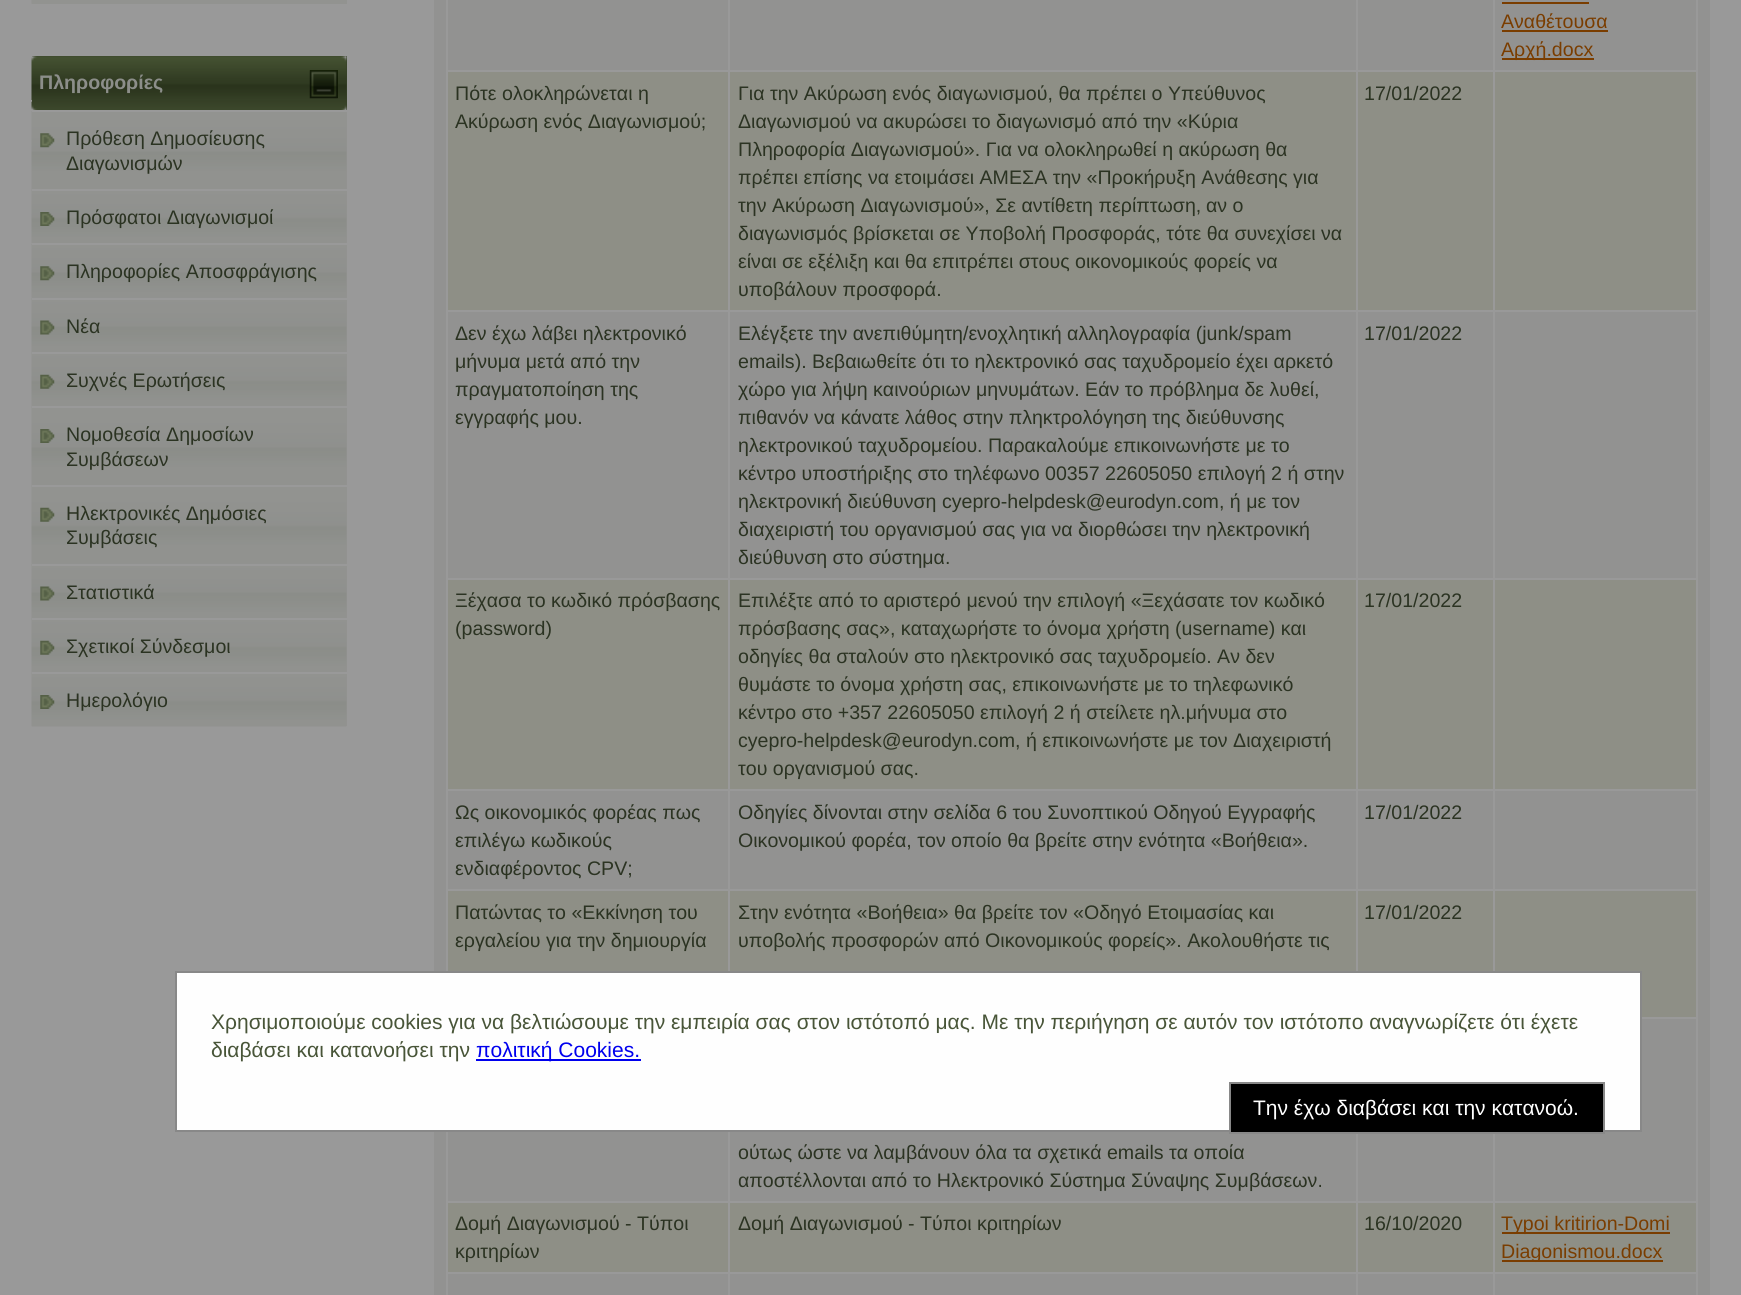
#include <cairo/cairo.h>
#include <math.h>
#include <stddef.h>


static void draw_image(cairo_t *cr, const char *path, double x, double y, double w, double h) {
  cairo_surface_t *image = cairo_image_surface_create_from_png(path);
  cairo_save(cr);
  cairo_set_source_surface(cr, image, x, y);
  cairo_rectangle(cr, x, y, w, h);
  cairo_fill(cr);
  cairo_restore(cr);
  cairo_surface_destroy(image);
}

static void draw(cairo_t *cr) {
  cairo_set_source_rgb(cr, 153 / 255.0, 153 / 255.0, 153 / 255.0);
  cairo_paint(cr);
  cairo_set_source_rgb(cr, 146 / 255.0, 147 / 255.0, 144 / 255.0);
  cairo_rectangle(cr, 32, 0, 315, 4);
  cairo_fill(cr);
  draw_image(cr, "images/1.png", 31, 0, 1, 4);
  cairo_set_source_rgb(cr, 53 / 255.0, 64 / 255.0, 38 / 255.0);
  cairo_rectangle(cr, 32, 56, 315, 54);
  cairo_fill(cr);
  draw_image(cr, "images/2.png", 31, 56, 316, 44);
  draw_image(cr, "images/3.png", 31, 101, 316, 10);
  cairo_set_source_rgb(cr, 21 / 255.0, 37 / 255.0, 0);
  cairo_rectangle(cr, 310, 70, 28, 28);
  cairo_fill(cr);
  draw_image(cr, "images/4.png", 309, 70, 29, 29);
  cairo_set_source_rgb(cr, 146 / 255.0, 147 / 255.0, 144 / 255.0);
  cairo_rectangle(cr, 346, 112, 1, 77);
  cairo_fill(cr);
  draw_image(cr, "images/5.png", 31, 111, 316, 79);
  draw_image(cr, "images/6.png", 40, 133, 15, 15);
  cairo_set_source_rgb(cr, 153 / 255.0, 153 / 255.0, 153 / 255.0);
  cairo_rectangle(cr, 32, 110, 315, 2);
  cairo_fill(cr);
  cairo_set_source_rgb(cr, 146 / 255.0, 147 / 255.0, 144 / 255.0);
  cairo_rectangle(cr, 346, 191, 1, 52);
  cairo_fill(cr);
  draw_image(cr, "images/7.png", 31, 189, 316, 55);
  draw_image(cr, "images/8.png", 40, 212, 15, 14);
  cairo_set_source_rgb(cr, 153 / 255.0, 153 / 255.0, 153 / 255.0);
  cairo_rectangle(cr, 32, 189, 315, 2);
  cairo_fill(cr);
  cairo_set_source_rgb(cr, 146 / 255.0, 147 / 255.0, 144 / 255.0);
  cairo_rectangle(cr, 32, 245, 315, 53);
  cairo_fill(cr);
  draw_image(cr, "images/9.png", 31, 244, 316, 54);
  draw_image(cr, "images/10.png", 40, 266, 15, 15);
  cairo_set_source_rgb(cr, 153 / 255.0, 153 / 255.0, 153 / 255.0);
  cairo_rectangle(cr, 32, 243, 315, 2);
  cairo_fill(cr);
  cairo_set_source_rgb(cr, 146 / 255.0, 147 / 255.0, 144 / 255.0);
  cairo_rectangle(cr, 346, 300, 1, 52);
  cairo_fill(cr);
  draw_image(cr, "images/11.png", 31, 298, 316, 54);
  draw_image(cr, "images/12.png", 40, 320, 15, 15);
  cairo_set_source_rgb(cr, 153 / 255.0, 153 / 255.0, 153 / 255.0);
  cairo_rectangle(cr, 32, 298, 315, 2);
  cairo_fill(cr);
  cairo_set_source_rgb(cr, 146 / 255.0, 147 / 255.0, 144 / 255.0);
  cairo_rectangle(cr, 346, 354, 1, 52);
  cairo_fill(cr);
  draw_image(cr, "images/13.png", 31, 352, 316, 55);
  draw_image(cr, "images/14.png", 40, 374, 15, 15);
  cairo_set_source_rgb(cr, 153 / 255.0, 153 / 255.0, 153 / 255.0);
  cairo_rectangle(cr, 32, 352, 315, 2);
  cairo_fill(cr);
  cairo_set_source_rgb(cr, 146 / 255.0, 147 / 255.0, 144 / 255.0);
  cairo_rectangle(cr, 346, 408, 1, 77);
  cairo_fill(cr);
  draw_image(cr, "images/15.png", 31, 406, 316, 79);
  draw_image(cr, "images/16.png", 40, 429, 15, 14);
  cairo_set_source_rgb(cr, 153 / 255.0, 153 / 255.0, 153 / 255.0);
  cairo_rectangle(cr, 32, 406, 315, 2);
  cairo_fill(cr);
  cairo_set_source_rgb(cr, 146 / 255.0, 147 / 255.0, 144 / 255.0);
  cairo_rectangle(cr, 32, 487, 315, 77);
  cairo_fill(cr);
  draw_image(cr, "images/17.png", 31, 485, 316, 79);
  draw_image(cr, "images/18.png", 40, 507, 15, 15);
  cairo_set_source_rgb(cr, 153 / 255.0, 153 / 255.0, 153 / 255.0);
  cairo_rectangle(cr, 32, 485, 315, 2);
  cairo_fill(cr);
  cairo_set_source_rgb(cr, 146 / 255.0, 147 / 255.0, 144 / 255.0);
  cairo_rectangle(cr, 346, 566, 1, 52);
  cairo_fill(cr);
  draw_image(cr, "images/11.png", 31, 564, 316, 54);
  draw_image(cr, "images/12.png", 40, 586, 15, 15);
  cairo_set_source_rgb(cr, 153 / 255.0, 153 / 255.0, 153 / 255.0);
  cairo_rectangle(cr, 32, 564, 315, 2);
  cairo_fill(cr);
  cairo_set_source_rgb(cr, 146 / 255.0, 147 / 255.0, 144 / 255.0);
  cairo_rectangle(cr, 346, 620, 1, 52);
  cairo_fill(cr);
  draw_image(cr, "images/13.png", 31, 618, 316, 55);
  draw_image(cr, "images/14.png", 40, 640, 15, 15);
  cairo_set_source_rgb(cr, 153 / 255.0, 153 / 255.0, 153 / 255.0);
  cairo_rectangle(cr, 32, 618, 315, 2);
  cairo_fill(cr);
  cairo_set_source_rgb(cr, 146 / 255.0, 147 / 255.0, 144 / 255.0);
  cairo_rectangle(cr, 346, 674, 1, 52);
  cairo_fill(cr);
  draw_image(cr, "images/7.png", 31, 672, 316, 55);
  draw_image(cr, "images/8.png", 40, 695, 15, 14);
  cairo_set_source_rgb(cr, 153 / 255.0, 153 / 255.0, 153 / 255.0);
  cairo_rectangle(cr, 32, 672, 315, 2);
  cairo_fill(cr);
  cairo_set_source_rgb(cr, 146 / 255.0, 146 / 255.0, 145 / 255.0);
  cairo_rectangle(cr, 434, 0, 1276, 1295);
  cairo_fill(cr);
  cairo_set_source_rgb(cr, 153 / 255.0, 153 / 255.0, 153 / 255.0);
  cairo_rectangle(cr, 1493, 70, 205, 2);
  cairo_fill(cr);
  cairo_rectangle(cr, 1493, 310, 205, 2);
  cairo_fill(cr);
  cairo_rectangle(cr, 1493, 578, 205, 2);
  cairo_fill(cr);
  cairo_rectangle(cr, 1493, 789, 205, 2);
  cairo_fill(cr);
  cairo_rectangle(cr, 1493, 889, 205, 2);
  cairo_fill(cr);
  cairo_rectangle(cr, 1493, 889, 2, 82);
  cairo_fill(cr);
  cairo_rectangle(cr, 1356, 889, 139, 2);
  cairo_fill(cr);
  cairo_rectangle(cr, 1493, 789, 2, 102);
  cairo_fill(cr);
  cairo_rectangle(cr, 1356, 789, 139, 2);
  cairo_fill(cr);
  cairo_rectangle(cr, 1493, 578, 2, 213);
  cairo_fill(cr);
  cairo_rectangle(cr, 1356, 578, 139, 2);
  cairo_fill(cr);
  cairo_rectangle(cr, 1493, 310, 2, 269);
  cairo_fill(cr);
  cairo_rectangle(cr, 1356, 310, 139, 2);
  cairo_fill(cr);
  cairo_rectangle(cr, 1493, 70, 2, 242);
  cairo_fill(cr);
  cairo_rectangle(cr, 1356, 70, 139, 2);
  cairo_fill(cr);
  cairo_rectangle(cr, 1356, 889, 2, 82);
  cairo_fill(cr);
  cairo_rectangle(cr, 728, 889, 630, 2);
  cairo_fill(cr);
  cairo_rectangle(cr, 1356, 789, 2, 102);
  cairo_fill(cr);
  cairo_rectangle(cr, 728, 789, 630, 2);
  cairo_fill(cr);
  cairo_rectangle(cr, 1356, 578, 2, 213);
  cairo_fill(cr);
  cairo_rectangle(cr, 728, 578, 630, 2);
  cairo_fill(cr);
  cairo_rectangle(cr, 1356, 310, 2, 269);
  cairo_fill(cr);
  cairo_rectangle(cr, 728, 310, 630, 2);
  cairo_fill(cr);
  cairo_rectangle(cr, 1356, 70, 2, 242);
  cairo_fill(cr);
  cairo_rectangle(cr, 728, 70, 630, 2);
  cairo_fill(cr);
  cairo_rectangle(cr, 728, 889, 2, 82);
  cairo_fill(cr);
  cairo_rectangle(cr, 446, 889, 284, 2);
  cairo_fill(cr);
  cairo_rectangle(cr, 728, 789, 2, 102);
  cairo_fill(cr);
  cairo_rectangle(cr, 446, 789, 284, 2);
  cairo_fill(cr);
  cairo_rectangle(cr, 728, 578, 2, 213);
  cairo_fill(cr);
  cairo_rectangle(cr, 446, 578, 284, 2);
  cairo_fill(cr);
  cairo_rectangle(cr, 728, 310, 2, 269);
  cairo_fill(cr);
  cairo_rectangle(cr, 446, 310, 284, 2);
  cairo_fill(cr);
  cairo_rectangle(cr, 728, 70, 2, 242);
  cairo_fill(cr);
  cairo_rectangle(cr, 446, 70, 284, 2);
  cairo_fill(cr);
  cairo_rectangle(cr, 728, 0, 2, 72);
  cairo_fill(cr);
  cairo_rectangle(cr, 1356, 0, 2, 72);
  cairo_fill(cr);
  cairo_rectangle(cr, 1493, 0, 2, 72);
  cairo_fill(cr);
  cairo_set_source_rgb(cr, 122 / 255.0, 61 / 255.0, 0);
  cairo_rectangle(cr, 1502, 2, 87, 2);
  cairo_fill(cr);
  cairo_rectangle(cr, 1502, 30, 106, 2);
  cairo_fill(cr);
  cairo_rectangle(cr, 1502, 58, 92, 2);
  cairo_fill(cr);
  cairo_set_source_rgb(cr, 142 / 255.0, 143 / 255.0, 134 / 255.0);
  cairo_rectangle(cr, 448, 72, 280, 238);
  cairo_fill(cr);
  cairo_set_source_rgb(cr, 153 / 255.0, 153 / 255.0, 153 / 255.0);
  cairo_rectangle(cr, 446, 889, 2, 82);
  cairo_fill(cr);
  cairo_rectangle(cr, 446, 789, 2, 102);
  cairo_fill(cr);
  cairo_rectangle(cr, 446, 578, 2, 213);
  cairo_fill(cr);
  cairo_rectangle(cr, 446, 310, 2, 269);
  cairo_fill(cr);
  cairo_rectangle(cr, 446, 0, 2, 312);
  cairo_fill(cr);
  cairo_set_source_rgb(cr, 142 / 255.0, 143 / 255.0, 134 / 255.0);
  cairo_rectangle(cr, 730, 72, 626, 238);
  cairo_fill(cr);
  cairo_rectangle(cr, 1358, 72, 135, 238);
  cairo_fill(cr);
  cairo_rectangle(cr, 1495, 72, 201, 238);
  cairo_fill(cr);
  cairo_set_source_rgb(cr, 153 / 255.0, 153 / 255.0, 153 / 255.0);
  cairo_rectangle(cr, 1642, 1017, 56, 2);
  cairo_fill(cr);
  cairo_rectangle(cr, 1493, 1201, 205, 2);
  cairo_fill(cr);
  cairo_rectangle(cr, 1493, 1272, 205, 2);
  cairo_fill(cr);
  cairo_rectangle(cr, 1696, 1272, 2, 23);
  cairo_fill(cr);
  cairo_rectangle(cr, 1696, 1201, 2, 73);
  cairo_fill(cr);
  cairo_rectangle(cr, 1696, 1017, 2, 185);
  cairo_fill(cr);
  cairo_rectangle(cr, 1696, 889, 2, 130);
  cairo_fill(cr);
  cairo_rectangle(cr, 1696, 789, 2, 102);
  cairo_fill(cr);
  cairo_rectangle(cr, 1696, 578, 2, 213);
  cairo_fill(cr);
  cairo_rectangle(cr, 1696, 310, 2, 269);
  cairo_fill(cr);
  cairo_rectangle(cr, 1696, 0, 2, 312);
  cairo_fill(cr);
  cairo_set_source_rgb(cr, 142 / 255.0, 143 / 255.0, 134 / 255.0);
  cairo_rectangle(cr, 448, 580, 280, 209);
  cairo_fill(cr);
  cairo_rectangle(cr, 730, 580, 626, 209);
  cairo_fill(cr);
  cairo_rectangle(cr, 1358, 580, 135, 209);
  cairo_fill(cr);
  cairo_rectangle(cr, 1495, 580, 201, 209);
  cairo_fill(cr);
  cairo_rectangle(cr, 448, 891, 280, 80);
  cairo_fill(cr);
  cairo_rectangle(cr, 730, 891, 626, 80);
  cairo_fill(cr);
  cairo_rectangle(cr, 1358, 891, 135, 80);
  cairo_fill(cr);
  cairo_rectangle(cr, 1495, 891, 201, 126);
  cairo_fill(cr);
  cairo_set_source_rgb(cr, 153 / 255.0, 153 / 255.0, 153 / 255.0);
  cairo_rectangle(cr, 1493, 1272, 2, 23);
  cairo_fill(cr);
  cairo_rectangle(cr, 1356, 1272, 139, 2);
  cairo_fill(cr);
  cairo_rectangle(cr, 1493, 1201, 2, 73);
  cairo_fill(cr);
  cairo_rectangle(cr, 1356, 1201, 139, 2);
  cairo_fill(cr);
  cairo_rectangle(cr, 1356, 1272, 2, 23);
  cairo_fill(cr);
  cairo_rectangle(cr, 728, 1272, 630, 2);
  cairo_fill(cr);
  cairo_rectangle(cr, 1356, 1201, 2, 73);
  cairo_fill(cr);
  cairo_rectangle(cr, 728, 1201, 630, 2);
  cairo_fill(cr);
  cairo_rectangle(cr, 728, 1272, 2, 23);
  cairo_fill(cr);
  cairo_rectangle(cr, 446, 1272, 284, 2);
  cairo_fill(cr);
  cairo_rectangle(cr, 728, 1201, 2, 73);
  cairo_fill(cr);
  cairo_rectangle(cr, 446, 1201, 284, 2);
  cairo_fill(cr);
  cairo_rectangle(cr, 728, 1132, 2, 70);
  cairo_fill(cr);
  cairo_rectangle(cr, 1356, 1134, 2, 68);
  cairo_fill(cr);
  cairo_rectangle(cr, 1493, 1134, 2, 68);
  cairo_fill(cr);
  cairo_set_source_rgb(cr, 142 / 255.0, 143 / 255.0, 134 / 255.0);
  cairo_rectangle(cr, 448, 1203, 280, 69);
  cairo_fill(cr);
  cairo_set_source_rgb(cr, 153 / 255.0, 153 / 255.0, 153 / 255.0);
  cairo_rectangle(cr, 446, 1272, 2, 23);
  cairo_fill(cr);
  cairo_rectangle(cr, 446, 1132, 2, 142);
  cairo_fill(cr);
  cairo_set_source_rgb(cr, 142 / 255.0, 143 / 255.0, 134 / 255.0);
  cairo_rectangle(cr, 730, 1203, 626, 69);
  cairo_fill(cr);
  cairo_rectangle(cr, 1358, 1203, 135, 69);
  cairo_fill(cr);
  cairo_rectangle(cr, 1495, 1203, 201, 69);
  cairo_fill(cr);
  cairo_set_source_rgb(cr, 122 / 255.0, 61 / 255.0, 0);
  cairo_rectangle(cr, 1502, 1232, 168, 2);
  cairo_fill(cr);
  cairo_rectangle(cr, 1502, 1260, 161, 2);
  cairo_fill(cr);
  cairo_set_source_rgb(cr, 254 / 255.0, 254 / 255.0, 254 / 255.0);
  cairo_rectangle(cr, 176, 972, 1465, 159);
  cairo_fill_preserve(cr);
  cairo_set_source_rgb(cr, 136 / 255.0, 136 / 255.0, 136 / 255.0);
  cairo_stroke(cr);
  cairo_set_source_rgb(cr, 0, 0, 238 / 255.0);
  cairo_rectangle(cr, 476, 1059, 165, 2);
  cairo_fill(cr);
  cairo_set_source_rgb(cr, 0, 0, 0);
  cairo_rectangle(cr, 1230, 1083, 374, 50);
  cairo_fill_preserve(cr);
  cairo_set_source_rgb(cr, 136 / 255.0, 136 / 255.0, 136 / 255.0);
  cairo_stroke(cr);
  cairo_select_font_face(cr, "Liberation Sans", CAIRO_FONT_SLANT_NORMAL, CAIRO_FONT_WEIGHT_BOLD);
  cairo_set_font_size(cr, 19.6);
  cairo_set_source_rgb(cr, 140 / 255.0, 142 / 255.0, 138 / 255.0);
  cairo_move_to(cr, 39, 89);
  cairo_show_text(cr, "Πληροφορίες");
  cairo_select_font_face(cr, "Liberation Sans", CAIRO_FONT_SLANT_NORMAL, CAIRO_FONT_WEIGHT_NORMAL);
  cairo_set_source_rgb(cr, 43 / 255.0, 51 / 255.0, 34 / 255.0);
  cairo_move_to(cr, 66, 145);
  cairo_show_text(cr, "Πρόθεση Δημοσίευσης");
  cairo_move_to(cr, 66, 170);
  cairo_show_text(cr, "Διαγωνισμών");
  cairo_move_to(cr, 66, 224);
  cairo_show_text(cr, "Πρόσφατοι Διαγωνισμοί");
  cairo_move_to(cr, 66, 278);
  cairo_show_text(cr, "Πληροφορίες Αποσφράγισης");
  cairo_move_to(cr, 66, 333);
  cairo_show_text(cr, "Νέα");
  cairo_move_to(cr, 66, 387);
  cairo_show_text(cr, "Συχνές Ερωτήσεις");
  cairo_move_to(cr, 66, 441);
  cairo_show_text(cr, "Νομοθεσία Δημοσίων");
  cairo_move_to(cr, 66, 466);
  cairo_show_text(cr, "Συμβάσεων");
  cairo_move_to(cr, 66, 520);
  cairo_show_text(cr, "Ηλεκτρονικές Δημόσιες");
  cairo_move_to(cr, 66, 544);
  cairo_show_text(cr, "Συμβάσεις");
  cairo_move_to(cr, 66, 599);
  cairo_show_text(cr, "Στατιστικά");
  cairo_move_to(cr, 66, 653);
  cairo_show_text(cr, "Σχετικοί Σύνδεσμοι");
  cairo_move_to(cr, 66, 707);
  cairo_show_text(cr, "Ημερολόγιο");
  cairo_set_source_rgb(cr, 122 / 255.0, 61 / 255.0, 0);
  cairo_move_to(cr, 1501, 28);
  cairo_show_text(cr, "Αναθέτουσα");
  cairo_move_to(cr, 1501, 56);
  cairo_show_text(cr, "Αρχή.docx");
  cairo_set_source_rgb(cr, 43 / 255.0, 51 / 255.0, 34 / 255.0);
  cairo_move_to(cr, 455, 100);
  cairo_show_text(cr, "Πότε ολοκληρώνεται η");
  cairo_move_to(cr, 455, 128);
  cairo_show_text(cr, "Ακύρωση ενός Διαγωνισμού;");
  cairo_move_to(cr, 738, 100);
  cairo_show_text(cr, "Για την Ακύρωση ενός διαγωνισμού, θα πρέπει ο Υπεύθυνος");
  cairo_move_to(cr, 738, 128);
  cairo_show_text(cr, "Διαγωνισμού να ακυρώσει το διαγωνισμό από την «Κύρια");
  cairo_move_to(cr, 738, 156);
  cairo_show_text(cr, "Πληροφορία Διαγωνισμού». Για να ολοκληρωθεί η ακύρωση θα");
  cairo_move_to(cr, 738, 184);
  cairo_show_text(cr, "πρέπει επίσης να ετοιμάσει ΑΜΕΣΑ την «Προκήρυξη Ανάθεσης για");
  cairo_move_to(cr, 738, 212);
  cairo_show_text(cr, "την Ακύρωση Διαγωνισμού», Σε αντίθετη περίπτωση,");
  cairo_move_to(cr, 1206, 212);
  cairo_show_text(cr, "αν ο");
  cairo_move_to(cr, 738, 240);
  cairo_show_text(cr, "διαγωνισμός βρίσκεται σε Υποβολή Προσφοράς, τότε θα συνεχίσει να");
  cairo_move_to(cr, 738, 268);
  cairo_show_text(cr, "είναι σε εξέλιξη και θα επιτρέπει στους οικονομικούς φορείς να");
  cairo_move_to(cr, 738, 296);
  cairo_show_text(cr, "υποβάλουν προσφορά.");
  cairo_move_to(cr, 1364, 100);
  cairo_show_text(cr, "17/01/2022");
  cairo_move_to(cr, 455, 340);
  cairo_show_text(cr, "Δεν έχω λάβει ηλεκτρονικό");
  cairo_move_to(cr, 455, 368);
  cairo_show_text(cr, "μήνυμα μετά από την");
  cairo_move_to(cr, 455, 396);
  cairo_show_text(cr, "πραγματοποίηση της");
  cairo_move_to(cr, 455, 424);
  cairo_show_text(cr, "εγγραφής μου.");
  cairo_move_to(cr, 738, 340);
  cairo_show_text(cr, "Ελέγξετε την ανεπιθύμητη/ενοχλητική αλληλογραφία (junk/spam");
  cairo_move_to(cr, 738, 368);
  cairo_show_text(cr, "emails). Βεβαιωθείτε ότι το ηλεκτρονικό σας ταχυδρομείο έχει αρκετό");
  cairo_move_to(cr, 738, 396);
  cairo_show_text(cr, "χώρο για λήψη καινούριων μηνυμάτων. Εάν το πρόβλημα δε λυθεί,");
  cairo_move_to(cr, 738, 424);
  cairo_show_text(cr, "πιθανόν να κάνατε λάθος στην πληκτρολόγηση της διεύθυνσης");
  cairo_move_to(cr, 738, 452);
  cairo_show_text(cr, "ηλεκτρονικού ταχυδρομείου. Παρακαλούμε επικοινωνήστε με το");
  cairo_move_to(cr, 738, 480);
  cairo_show_text(cr, "κέντρο υποστήριξης στο τηλέφωνο 00357 22605050 επιλογή 2 ή στην");
  cairo_move_to(cr, 738, 508);
  cairo_show_text(cr, "ηλεκτρονική διεύθυνση cyepro-helpdesk@eurodyn.com, ή με τον");
  cairo_move_to(cr, 738, 536);
  cairo_show_text(cr, "διαχειριστή του οργανισμού σας για να διορθώσει την ηλεκτρονική");
  cairo_move_to(cr, 738, 564);
  cairo_show_text(cr, "διεύθυνση στο σύστημα.");
  cairo_move_to(cr, 1364, 340);
  cairo_show_text(cr, "17/01/2022");
  cairo_move_to(cr, 455, 607);
  cairo_show_text(cr, "Ξέχασα το κωδικό πρόσβασης");
  cairo_move_to(cr, 455, 635);
  cairo_show_text(cr, "(password)");
  cairo_move_to(cr, 738, 607);
  cairo_show_text(cr, "Επιλέξτε από το αριστερό μενού την επιλογή «Ξεχάσατε τον κωδικό");
  cairo_move_to(cr, 738, 635);
  cairo_show_text(cr, "πρόσβασης σας», καταχωρήστε το όνομα χρήστη (username) και");
  cairo_move_to(cr, 738, 663);
  cairo_show_text(cr, "οδηγίες θα σταλούν στο ηλεκτρονικό σας ταχυδρομείο. Αν δεν");
  cairo_move_to(cr, 738, 691);
  cairo_show_text(cr, "θυμάστε το όνομα χρήστη σας, επικοινωνήστε με το τηλεφωνικό");
  cairo_move_to(cr, 738, 719);
  cairo_show_text(cr, "κέντρο στο +357 22605050 επιλογή 2 ή στείλετε ηλ.μήνυμα στο");
  cairo_move_to(cr, 738, 747);
  cairo_show_text(cr, "cyepro-helpdesk@eurodyn.com, ή επικοινωνήστε με τον Διαχειριστή");
  cairo_move_to(cr, 738, 775);
  cairo_show_text(cr, "του οργανισμού σας.");
  cairo_move_to(cr, 1364, 607);
  cairo_show_text(cr, "17/01/2022");
  cairo_move_to(cr, 455, 819);
  cairo_show_text(cr, "Ως οικονομικός φορέας πως");
  cairo_move_to(cr, 455, 847);
  cairo_show_text(cr, "επιλέγω κωδικούς");
  cairo_move_to(cr, 455, 875);
  cairo_show_text(cr, "ενδιαφέροντος CPV;");
  cairo_move_to(cr, 738, 819);
  cairo_show_text(cr, "Οδηγίες δίνονται στην σελίδα 6 του Συνοπτικού Οδηγού Εγγραφής");
  cairo_move_to(cr, 738, 847);
  cairo_show_text(cr, "Οικονομικού φορέα, τον οποίο θα βρείτε στην ενότητα «Βοήθεια».");
  cairo_move_to(cr, 1364, 819);
  cairo_show_text(cr, "17/01/2022");
  cairo_move_to(cr, 455, 919);
  cairo_show_text(cr, "Πατώντας το «Εκκίνηση του");
  cairo_move_to(cr, 455, 947);
  cairo_show_text(cr, "εργαλείου για την δημιουργία");
  cairo_move_to(cr, 738, 919);
  cairo_show_text(cr, "Στην ενότητα «Βοήθεια» θα βρείτε τον «Οδηγό Ετοιμασίας και");
  cairo_move_to(cr, 738, 947);
  cairo_show_text(cr, "υποβολής προσφορών από Οικονομικούς φορείς». Ακολουθήστε τις");
  cairo_move_to(cr, 1364, 919);
  cairo_show_text(cr, "17/01/2022");
  cairo_move_to(cr, 738, 1159);
  cairo_show_text(cr, "ούτως ώστε να λαμβάνουν όλα τα σχετικά emails τα οποία");
  cairo_move_to(cr, 738, 1187);
  cairo_show_text(cr, "αποστέλλονται από το Ηλεκτρονικό Σύστημα Σύναψης Συμβάσεων.");
  cairo_move_to(cr, 455, 1230);
  cairo_show_text(cr, "Δομή Διαγωνισμού - Τύποι");
  cairo_move_to(cr, 455, 1258);
  cairo_show_text(cr, "κριτηρίων");
  cairo_move_to(cr, 738, 1230);
  cairo_show_text(cr, "Δομή Διαγωνισμού - Τύποι κριτηρίων");
  cairo_move_to(cr, 1364, 1230);
  cairo_show_text(cr, "16/10/2020");
  cairo_set_source_rgb(cr, 122 / 255.0, 61 / 255.0, 0);
  cairo_move_to(cr, 1501, 1230);
  cairo_show_text(cr, "Typoi kritirion-Domi");
  cairo_move_to(cr, 1501, 1258);
  cairo_show_text(cr, "Diagonismou.docx");
  cairo_set_font_size(cr, 21);
  cairo_set_source_rgb(cr, 72 / 255.0, 85 / 255.0, 56 / 255.0);
  cairo_move_to(cr, 211, 1029);
  cairo_show_text(cr, "Χρησιμοποιούμε cookies για να βελτιώσουμε την εμπειρία σας στον ιστότοπό μας. Με την περιήγηση σε αυτόν τον ιστότοπο αναγνωρίζετε ότι έχετε");
  cairo_move_to(cr, 211, 1057);
  cairo_show_text(cr, "διαβάσει και κατανοήσει την");
  cairo_set_source_rgb(cr, 0, 0, 238 / 255.0);
  cairo_move_to(cr, 476, 1057);
  cairo_show_text(cr, "πολιτική Cookies.");
  cairo_set_source_rgb(cr, 1, 1, 1);
  cairo_move_to(cr, 1253, 1115);
  cairo_show_text(cr, "Την έχω διαβάσει και την κατανοώ.");
}

int main(void) {
  cairo_surface_t *surface = cairo_image_surface_create(CAIRO_FORMAT_RGB24, 1741, 1295);
  cairo_t *cr = cairo_create(surface);
  cairo_font_options_t *options = cairo_font_options_create();
  cairo_font_options_set_hint_metrics(options, CAIRO_HINT_METRICS_OFF);
  cairo_font_options_set_hint_style(options, CAIRO_HINT_STYLE_NONE);
  cairo_set_font_options(cr, options);
  cairo_set_miter_limit(cr, 4);
  draw(cr);
  cairo_surface_write_to_png(surface, "out.png");
  cairo_font_options_destroy(options);
  cairo_destroy(cr);
  cairo_surface_destroy(surface);
  return 0;
}
